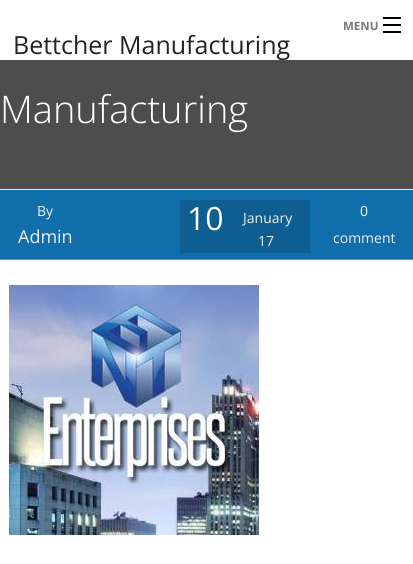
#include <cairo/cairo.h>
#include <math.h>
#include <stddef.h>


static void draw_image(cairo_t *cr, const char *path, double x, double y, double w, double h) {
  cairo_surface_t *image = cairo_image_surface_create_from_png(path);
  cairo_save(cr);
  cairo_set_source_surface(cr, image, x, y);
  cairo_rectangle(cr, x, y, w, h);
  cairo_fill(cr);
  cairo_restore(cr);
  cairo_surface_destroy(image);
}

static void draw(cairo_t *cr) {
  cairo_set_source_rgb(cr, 1, 1, 1);
  cairo_paint(cr);
  cairo_set_source_rgb(cr, 0, 0, 0);
  cairo_rectangle(cr, 383, 31, 18, 2);
  cairo_fill(cr);
  cairo_rectangle(cr, 383, 24, 18, 2);
  cairo_fill(cr);
  cairo_rectangle(cr, 383, 17, 18, 2);
  cairo_fill(cr);
  cairo_set_source_rgb(cr, 235 / 255.0, 237 / 255.0, 237 / 255.0);
  cairo_rectangle(cr, 0, 189, 413, 1);
  cairo_fill(cr);
  cairo_set_source_rgb(cr, 77 / 255.0, 77 / 255.0, 77 / 255.0);
  cairo_rectangle(cr, 0, 60, 413, 129);
  cairo_fill(cr);
  cairo_set_source_rgb(cr, 16 / 255.0, 110 / 255.0, 170 / 255.0);
  cairo_rectangle(cr, 0, 190, 413, 69);
  cairo_fill(cr);
  cairo_set_source_rgb(cr, 88 / 255.0, 154 / 255.0, 196 / 255.0);
  cairo_rectangle(cr, 0, 259, 413, 1);
  cairo_fill(cr);
  cairo_set_source_rgb(cr, 14 / 255.0, 94 / 255.0, 145 / 255.0);
  cairo_rectangle(cr, 180, 200, 130, 53);
  cairo_fill(cr);
  draw_image(cr, "images/1.png", 9, 285, 250, 250);
  cairo_select_font_face(cr, "Open Sans", CAIRO_FONT_SLANT_NORMAL, CAIRO_FONT_WEIGHT_BOLD);
  cairo_set_font_size(cr, 11.5);
  cairo_set_source_rgb(cr, 119 / 255.0, 119 / 255.0, 119 / 255.0);
  cairo_move_to(cr, 343, 30);
  cairo_show_text(cr, "MENU");
  cairo_select_font_face(cr, "Open Sans", CAIRO_FONT_SLANT_NORMAL, CAIRO_FONT_WEIGHT_NORMAL);
  cairo_set_font_size(cr, 25);
  cairo_set_source_rgb(cr, 34 / 255.0, 34 / 255.0, 34 / 255.0);
  cairo_move_to(cr, 13, 54);
  cairo_show_text(cr, "Bettcher Manufacturing");
  cairo_select_font_face(cr, "Open Sans Light", CAIRO_FONT_SLANT_NORMAL, CAIRO_FONT_WEIGHT_NORMAL);
  cairo_set_font_size(cr, 38);
  cairo_set_source_rgb(cr, 1, 1, 1);
  cairo_move_to(cr, 0, 123);
  cairo_show_text(cr, "Manufacturing");
  cairo_select_font_face(cr, "Open Sans", CAIRO_FONT_SLANT_NORMAL, CAIRO_FONT_WEIGHT_NORMAL);
  cairo_set_font_size(cr, 14);
  cairo_set_source_rgb(cr, 238 / 255.0, 238 / 255.0, 238 / 255.0);
  cairo_move_to(cr, 37, 216);
  cairo_show_text(cr, "By");
  cairo_set_font_size(cr, 18);
  cairo_move_to(cr, 18, 243);
  cairo_show_text(cr, "Admin");
  cairo_set_font_size(cr, 32);
  cairo_set_source_rgb(cr, 1, 1, 1);
  cairo_move_to(cr, 187, 230);
  cairo_show_text(cr, "10");
  cairo_set_font_size(cr, 14);
  cairo_set_source_rgb(cr, 238 / 255.0, 238 / 255.0, 238 / 255.0);
  cairo_move_to(cr, 243, 223);
  cairo_show_text(cr, "January");
  cairo_move_to(cr, 258, 246);
  cairo_show_text(cr, "17");
  cairo_set_source_rgb(cr, 1, 1, 1);
  cairo_move_to(cr, 360, 216);
  cairo_show_text(cr, "0");
  cairo_set_source_rgb(cr, 238 / 255.0, 238 / 255.0, 238 / 255.0);
  cairo_move_to(cr, 333, 243);
  cairo_show_text(cr, "comment");
}

int main(void) {
  cairo_surface_t *surface = cairo_image_surface_create(CAIRO_FORMAT_RGB24, 413, 564);
  cairo_t *cr = cairo_create(surface);
  cairo_font_options_t *options = cairo_font_options_create();
  cairo_font_options_set_hint_metrics(options, CAIRO_HINT_METRICS_OFF);
  cairo_font_options_set_hint_style(options, CAIRO_HINT_STYLE_NONE);
  cairo_set_font_options(cr, options);
  cairo_set_miter_limit(cr, 4);
  draw(cr);
  cairo_surface_write_to_png(surface, "out.png");
  cairo_font_options_destroy(options);
  cairo_destroy(cr);
  cairo_surface_destroy(surface);
  return 0;
}
